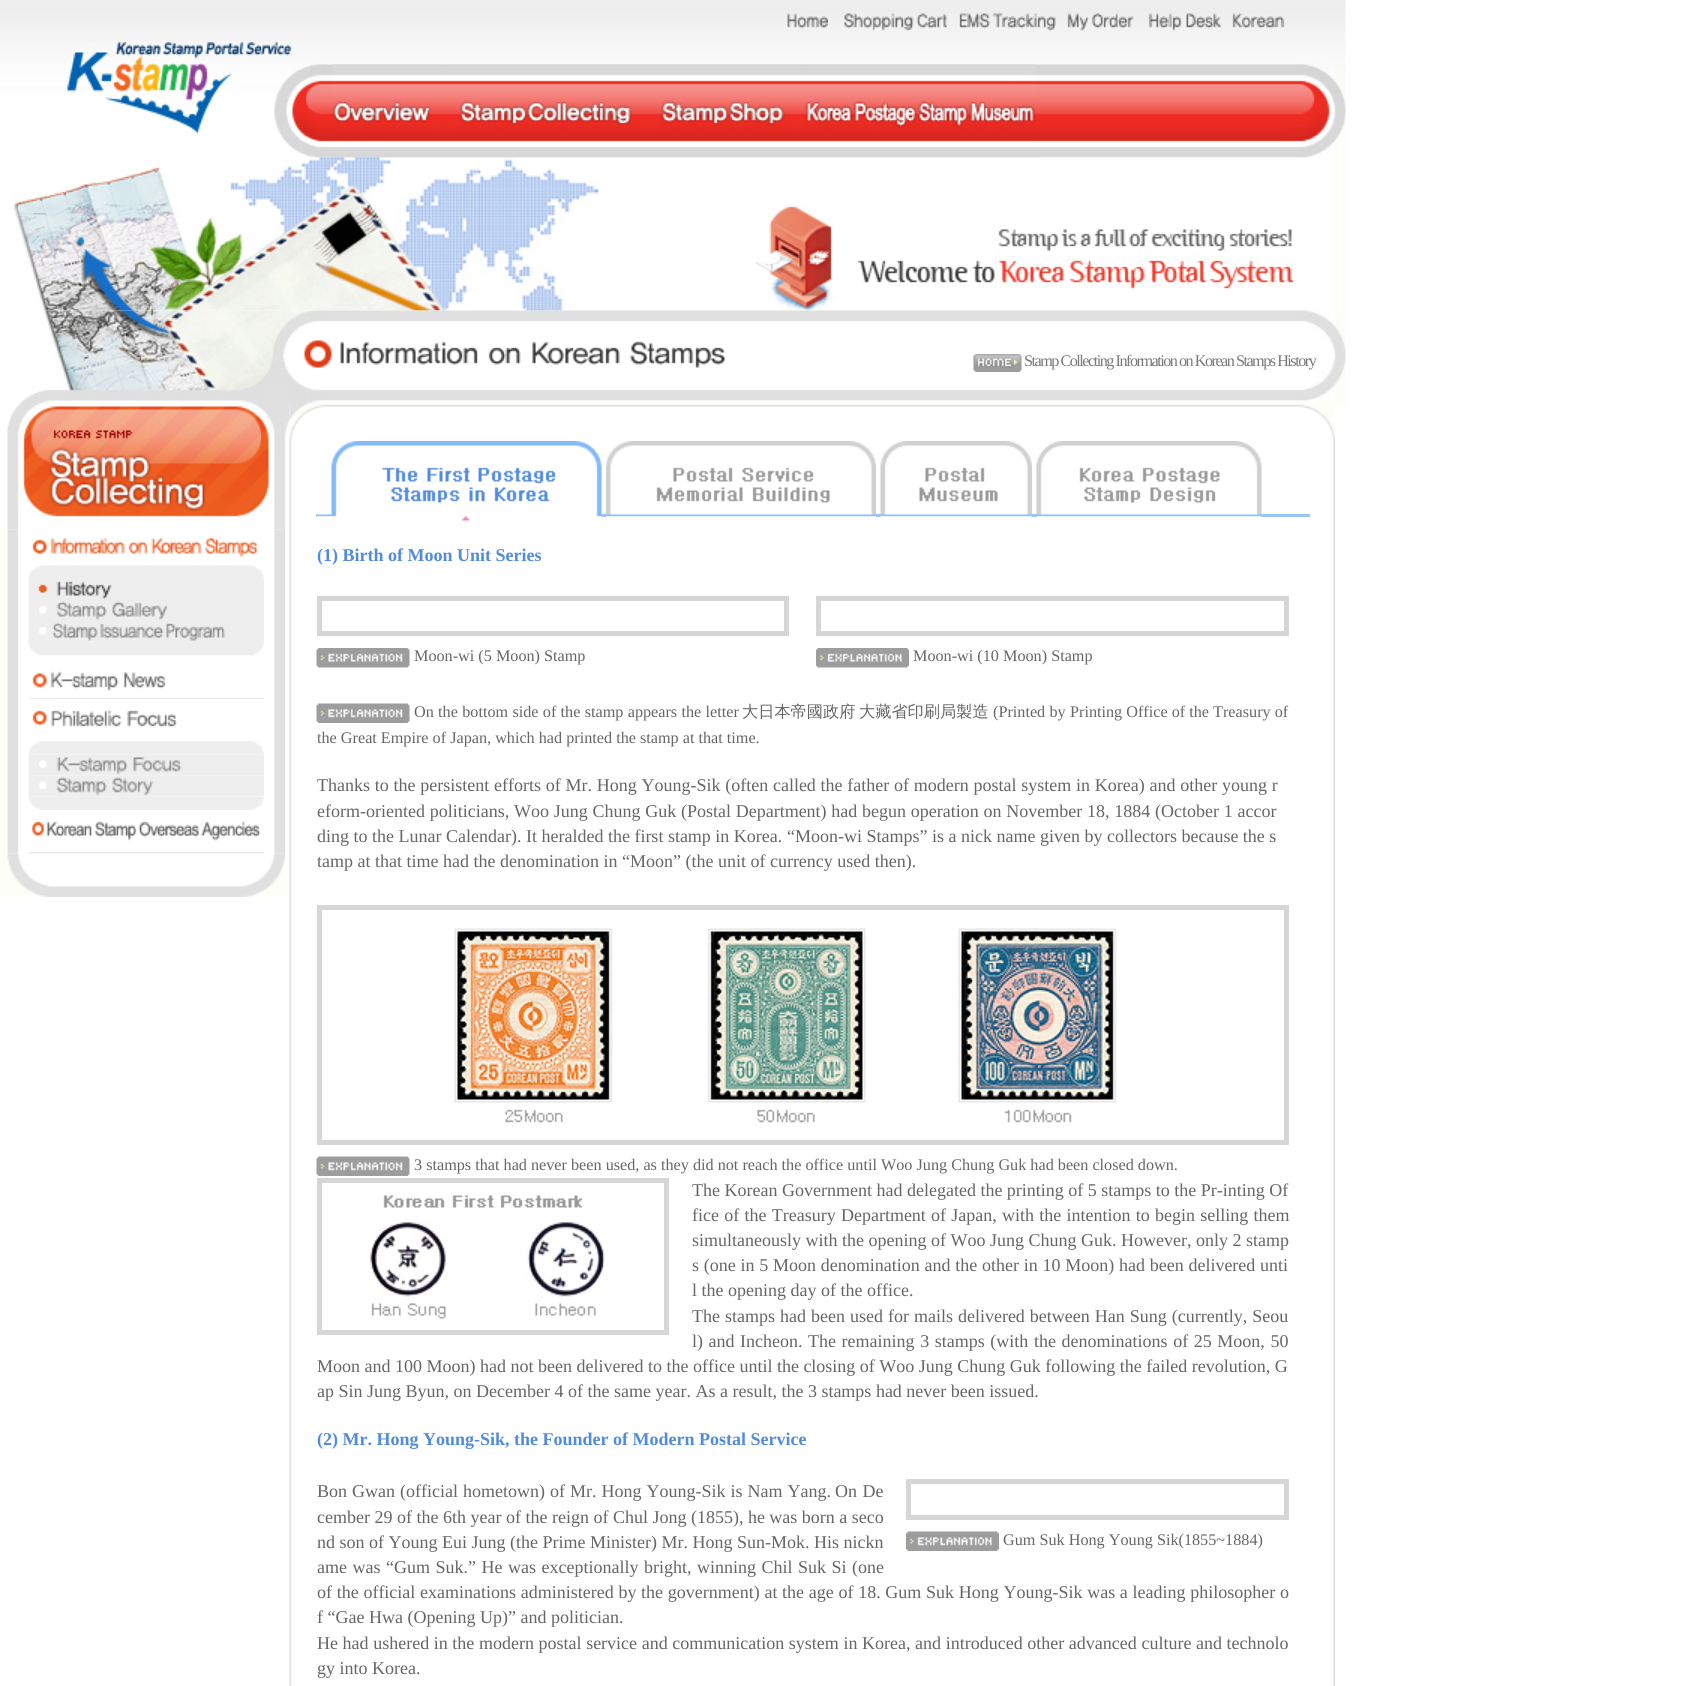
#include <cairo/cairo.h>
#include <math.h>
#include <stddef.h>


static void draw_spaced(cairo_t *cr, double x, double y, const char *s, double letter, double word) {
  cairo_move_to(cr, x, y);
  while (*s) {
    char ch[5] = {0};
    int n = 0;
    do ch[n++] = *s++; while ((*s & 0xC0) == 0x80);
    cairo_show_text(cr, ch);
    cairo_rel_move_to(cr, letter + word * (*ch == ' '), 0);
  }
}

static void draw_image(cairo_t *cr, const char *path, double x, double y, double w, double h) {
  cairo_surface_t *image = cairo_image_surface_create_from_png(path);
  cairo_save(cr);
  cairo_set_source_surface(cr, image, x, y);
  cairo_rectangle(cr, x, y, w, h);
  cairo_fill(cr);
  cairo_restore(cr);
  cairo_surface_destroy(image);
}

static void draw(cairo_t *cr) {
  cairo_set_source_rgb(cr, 1, 1, 1);
  cairo_paint(cr);
  draw_image(cr, "images/1.png", 0, 0, 1346, 158);
  draw_image(cr, "images/2.png", 787, 13, 41, 16);
  draw_image(cr, "images/3.png", 843, 13, 104, 18);
  draw_image(cr, "images/4.png", 959, 13, 97, 18);
  draw_image(cr, "images/5.png", 1067, 13, 67, 18);
  draw_image(cr, "images/6.png", 1148, 13, 73, 18);
  draw_image(cr, "images/7.png", 1232, 13, 53, 16);
  draw_image(cr, "images/8.png", 67, 42, 244, 98);
  draw_image(cr, "images/9.png", 333, 64, 113, 94);
  draw_image(cr, "images/10.png", 446, 64, 205, 94);
  draw_image(cr, "images/11.png", 651, 64, 155, 94);
  draw_image(cr, "images/12.png", 805, 64, 230, 94);
  draw_image(cr, "images/13.png", 13, 157, 1333, 154);
  draw_image(cr, "images/14.png", 857, 229, 437, 60);
  draw_image(cr, "images/15.png", 19, 310, 1327, 95);
  draw_image(cr, "images/16.png", 304, 340, 28, 28);
  draw_image(cr, "images/17.png", 340, 341, 385, 27);
  draw_image(cr, "images/18.png", 973, 354, 49, 18);
  draw_image(cr, "images/19.png", 7, 405, 283, 125);
  draw_image(cr, "images/20.png", 0, 529, 285, 325);
  draw_image(cr, "images/21.png", 32, 538, 227, 19);
  draw_image(cr, "images/22.png", 28, 565, 236, 14);
  draw_image(cr, "images/23.png", 28, 579, 236, 21);
  draw_image(cr, "images/24.png", 28, 600, 236, 21);
  draw_image(cr, "images/25.png", 28, 621, 236, 21);
  draw_image(cr, "images/26.png", 28, 642, 236, 14);
  cairo_set_source_rgb(cr, 235 / 255.0, 235 / 255.0, 235 / 255.0);
  cairo_rectangle(cr, 29, 698, 235, 1);
  cairo_fill(cr);
  draw_image(cr, "images/27.png", 32, 655, 219, 36);
  draw_image(cr, "images/28.png", 29, 699, 235, 28);
  draw_image(cr, "images/29.png", 28, 741, 236, 14);
  draw_image(cr, "images/30.png", 28, 754, 236, 22);
  draw_image(cr, "images/31.png", 28, 775, 236, 22);
  draw_image(cr, "images/32.png", 28, 796, 236, 14);
  cairo_rectangle(cr, 29, 852, 235, 2);
  cairo_fill(cr);
  draw_image(cr, "images/33.png", 32, 821, 229, 20);
  draw_image(cr, "images/34.png", 0, 853, 285, 44);
  draw_image(cr, "images/35.png", 289, 400, 1046, 41);
  draw_image(cr, "images/36.png", 289, 441, 1046, 1245);
  cairo_set_source_rgb(cr, 151 / 255.0, 197 / 255.0, 248 / 255.0);
  cairo_rectangle(cr, 316, 514, 994, 3);
  cairo_fill(cr);
  draw_image(cr, "images/37.png", 316, 441, 286, 80);
  draw_image(cr, "images/38.png", 606, 441, 270, 76);
  draw_image(cr, "images/39.png", 880, 441, 152, 76);
  draw_image(cr, "images/40.png", 1036, 441, 226, 76);
  cairo_rectangle(cr, 319.5, 598.5, 467, 35);
  cairo_set_source_rgb(cr, 214 / 255.0, 214 / 255.0, 214 / 255.0);
  cairo_set_line_width(cr, 5);
  cairo_stroke(cr);
  draw_image(cr, "images/41.png", 316, 648, 94, 20);
  cairo_rectangle(cr, 818.5, 598.5, 468, 35);
  cairo_stroke(cr);
  draw_image(cr, "images/42.png", 816, 648, 93, 20);
  draw_image(cr, "images/43.png", 316, 703, 94, 20);
  cairo_rectangle(cr, 319.5, 907.5, 967, 235);
  cairo_stroke(cr);
  draw_image(cr, "images/44.png", 454, 928, 663, 195);
  draw_image(cr, "images/43.png", 316, 1156, 94, 20);
  cairo_rectangle(cr, 319.5, 1180.5, 347, 152);
  cairo_stroke(cr);
  draw_image(cr, "images/45.png", 370, 1195, 235, 124);
  cairo_rectangle(cr, 908.5, 1481.5, 378, 36);
  cairo_stroke(cr);
  draw_image(cr, "images/46.png", 906, 1531, 93, 20);
  cairo_select_font_face(cr, "Liberation Serif", CAIRO_FONT_SLANT_NORMAL, CAIRO_FONT_WEIGHT_NORMAL);
  cairo_set_font_size(cr, 16.2);
  cairo_set_source_rgb(cr, 121 / 255.0, 121 / 255.0, 121 / 255.0);
  draw_spaced(cr, 1024, 366, "Stamp Collecting Information on Korean Stamps History", -1.5, 0);
  cairo_select_font_face(cr, "Liberation Serif", CAIRO_FONT_SLANT_NORMAL, CAIRO_FONT_WEIGHT_BOLD);
  cairo_set_font_size(cr, 18);
  cairo_set_source_rgb(cr, 81 / 255.0, 139 / 255.0, 220 / 255.0);
  cairo_move_to(cr, 317, 561);
  cairo_show_text(cr, "(1) Birth of Moon Unit Series");
  cairo_select_font_face(cr, "Liberation Serif", CAIRO_FONT_SLANT_NORMAL, CAIRO_FONT_WEIGHT_NORMAL);
  cairo_set_font_size(cr, 16.2);
  cairo_set_source_rgb(cr, 102 / 255.0, 102 / 255.0, 102 / 255.0);
  cairo_move_to(cr, 414, 661);
  cairo_show_text(cr, "Moon-wi (5 Moon) Stamp");
  cairo_move_to(cr, 913, 661);
  cairo_show_text(cr, "Moon-wi (10 Moon) Stamp");
  draw_spaced(cr, 414, 717, "On the bottom side of the stamp appears the letter", 0, 0.25);
  cairo_select_font_face(cr, "WenQuanYi Zen Hei Medium", CAIRO_FONT_SLANT_NORMAL, CAIRO_FONT_WEIGHT_NORMAL);
  cairo_move_to(cr, 742, 717);
  cairo_show_text(cr, "大日本帝國政府");
  cairo_move_to(cr, 859, 717);
  cairo_show_text(cr, "大藏省印刷局製造");
  cairo_select_font_face(cr, "Liberation Serif", CAIRO_FONT_SLANT_NORMAL, CAIRO_FONT_WEIGHT_NORMAL);
  draw_spaced(cr, 993, 717, "(Printed by", 0, 0.25);
  cairo_move_to(cr, 1070, 717);
  cairo_show_text(cr, "Printing Office of the Treasury of");
  cairo_move_to(cr, 317, 743);
  cairo_show_text(cr, "the Great Empire of Japan, which had printed the stamp at that time.");
  cairo_set_font_size(cr, 18);
  draw_spaced(cr, 317, 791, "Thanks to the persistent efforts of Mr. Hong Young-Sik (often called the father of modern postal system in Korea) and other young r", 0, 0.25);
  draw_spaced(cr, 317, 817, "eform-oriented politicians, Woo Jung Chung Guk (Postal Department) had begun operation on November 18, 1884 (October 1 accor", 0, 0.25);
  cairo_move_to(cr, 317, 842);
  cairo_show_text(cr, "ding to the Lunar Calendar). It heralded the first stamp in Korea.");
  cairo_move_to(cr, 787, 842);
  cairo_show_text(cr, "“Moon-wi Stamps” is a nick name given by collectors because the s");
  cairo_move_to(cr, 317, 867);
  cairo_show_text(cr, "tamp at that time had the denomination in “Moon” (the unit of currency used then).");
  cairo_set_font_size(cr, 16.2);
  cairo_move_to(cr, 414, 1170);
  cairo_show_text(cr, "3 stamps that had never been used, as they did not reach the office until Woo Jung Chung Guk had been closed down.");
  cairo_set_font_size(cr, 18);
  cairo_move_to(cr, 692, 1196);
  cairo_show_text(cr, "The Korean Government had delegated the printing of 5 stamps to the Pr-inting Of");
  draw_spaced(cr, 692, 1221, "fice of the Treasury Department of Japan, with the intention to begin selling them", 0, 0.75);
  cairo_move_to(cr, 692, 1246);
  cairo_show_text(cr, "simultaneously with the opening of Woo Jung Chung Guk. However, only 2 stamp");
  draw_spaced(cr, 692, 1271, "s (one in 5 Moon denomination and the other in 10 Moon) had been delivered unti", 0, 0.25);
  cairo_move_to(cr, 692, 1296);
  cairo_show_text(cr, "l the opening day of the office.");
  draw_spaced(cr, 692, 1322, "The stamps had been used for mails delivered between Han Sung (currently, Seou", 0, 0.5);
  draw_spaced(cr, 692, 1347, "l) and Incheon.", 0, 1);
  draw_spaced(cr, 808, 1347, "The remaining 3 stamps (with the denominations of 25 Moon, 50", 0, 1.1);
  cairo_move_to(cr, 317, 1372);
  cairo_show_text(cr, "Moon and 100 Moon) had not been delivered to the office until the closing of Woo Jung Chung Guk following the failed revolution, G");
  cairo_move_to(cr, 317, 1397);
  cairo_show_text(cr, "ap Sin Jung Byun, on December 4 of the same year. As a result, the 3 stamps had never been issued.");
  cairo_select_font_face(cr, "Liberation Serif", CAIRO_FONT_SLANT_NORMAL, CAIRO_FONT_WEIGHT_BOLD);
  cairo_set_source_rgb(cr, 81 / 255.0, 139 / 255.0, 220 / 255.0);
  cairo_move_to(cr, 317, 1445);
  cairo_show_text(cr, "(2) Mr. Hong Young-Sik, the Founder of Modern Postal Service");
  cairo_select_font_face(cr, "Liberation Serif", CAIRO_FONT_SLANT_NORMAL, CAIRO_FONT_WEIGHT_NORMAL);
  cairo_set_source_rgb(cr, 102 / 255.0, 102 / 255.0, 102 / 255.0);
  draw_spaced(cr, 317, 1497, "Bon Gwan (official hometown) of Mr. Hong Young-Sik is Nam Yang.", 0, 0.5);
  draw_spaced(cr, 835, 1497, "On De", 0, 1);
  cairo_move_to(cr, 317, 1523);
  cairo_show_text(cr, "cember 29 of the 6th year of the reign of Chul Jong (1855), he was born a seco");
  cairo_move_to(cr, 317, 1548);
  cairo_show_text(cr, "nd son of Young Eui Jung (the Prime Minister) Mr. Hong Sun-Mok. His nickn");
  cairo_set_font_size(cr, 16.2);
  cairo_move_to(cr, 1003, 1545);
  cairo_show_text(cr, "Gum Suk Hong Young Sik(1855~1884)");
  cairo_set_font_size(cr, 18);
  draw_spaced(cr, 317, 1573, "ame was “Gum Suk.” He was exceptionally bright, winning Chil Suk Si (one", 0, 1);
  draw_spaced(cr, 317, 1598, "of the official examinations administered by the government) at the age of 18. Gum Suk Hong Young-Sik was a leading philosopher o", 0, 0.2);
  cairo_move_to(cr, 317, 1623);
  cairo_show_text(cr, "f “Gae Hwa (Opening Up)” and politician.");
  draw_spaced(cr, 317, 1649, "He had ushered in the modern postal service and communication system in Korea, and introduced other advanced culture and technolo", 0, 0.1);
  cairo_move_to(cr, 317, 1674);
  cairo_show_text(cr, "gy into Korea.");
}

int main(void) {
  cairo_surface_t *surface = cairo_image_surface_create(CAIRO_FORMAT_RGB24, 1704, 1686);
  cairo_t *cr = cairo_create(surface);
  cairo_font_options_t *options = cairo_font_options_create();
  cairo_font_options_set_hint_metrics(options, CAIRO_HINT_METRICS_OFF);
  cairo_font_options_set_hint_style(options, CAIRO_HINT_STYLE_NONE);
  cairo_set_font_options(cr, options);
  cairo_set_miter_limit(cr, 4);
  draw(cr);
  cairo_surface_write_to_png(surface, "out.png");
  cairo_font_options_destroy(options);
  cairo_destroy(cr);
  cairo_surface_destroy(surface);
  return 0;
}
